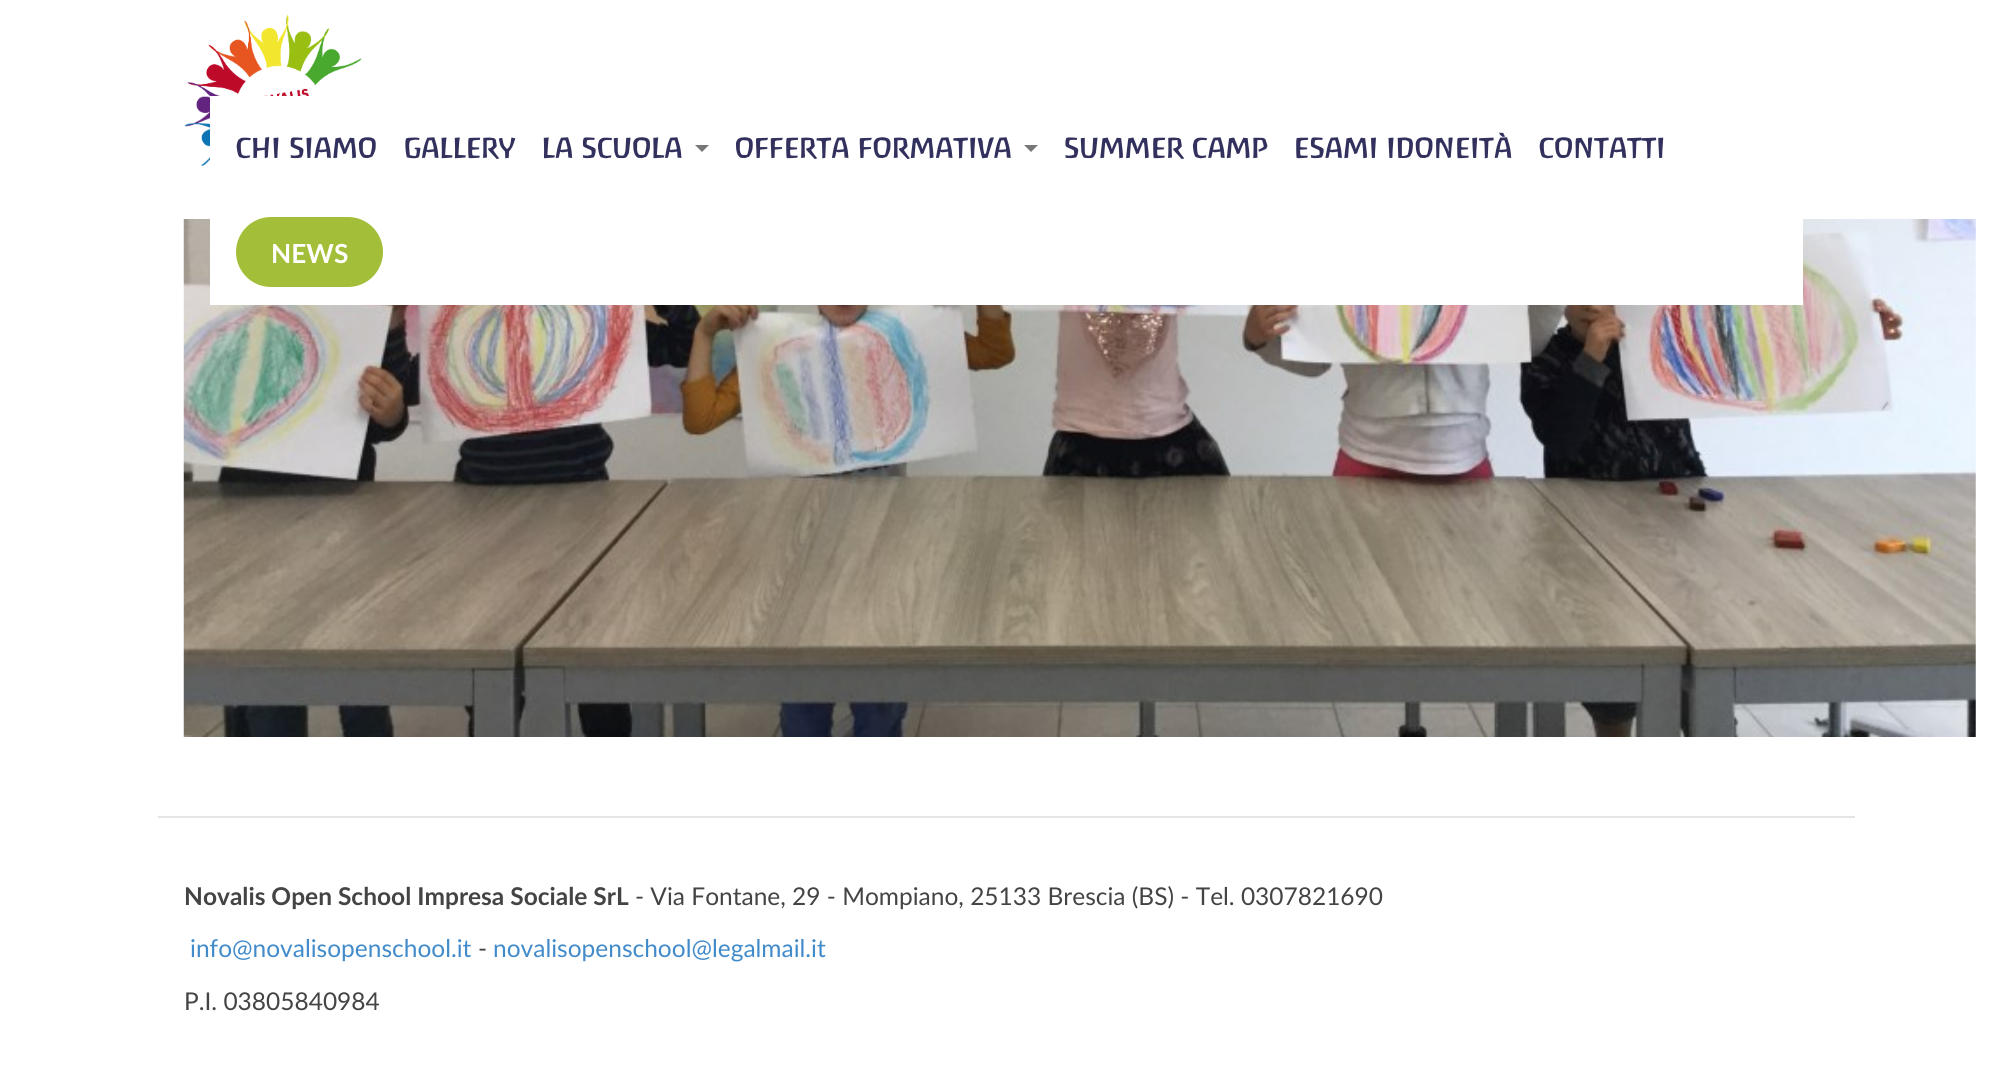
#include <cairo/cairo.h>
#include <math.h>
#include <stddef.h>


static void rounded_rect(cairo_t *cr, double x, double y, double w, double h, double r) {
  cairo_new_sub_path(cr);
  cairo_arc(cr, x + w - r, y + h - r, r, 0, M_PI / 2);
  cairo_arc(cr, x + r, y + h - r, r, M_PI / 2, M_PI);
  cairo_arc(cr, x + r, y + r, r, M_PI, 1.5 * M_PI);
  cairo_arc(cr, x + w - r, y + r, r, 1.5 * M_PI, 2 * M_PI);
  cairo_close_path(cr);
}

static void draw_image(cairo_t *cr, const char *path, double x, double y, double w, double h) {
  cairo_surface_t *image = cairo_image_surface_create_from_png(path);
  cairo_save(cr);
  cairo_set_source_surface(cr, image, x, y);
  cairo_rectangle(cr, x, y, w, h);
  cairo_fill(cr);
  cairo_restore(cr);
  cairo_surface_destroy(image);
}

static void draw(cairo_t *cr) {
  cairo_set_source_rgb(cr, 1, 1, 1);
  cairo_paint(cr);
  draw_image(cr, "images/1.png", 184, 14, 178, 152);
  draw_image(cr, "images/2.png", 183, 219, 1793, 518);
  cairo_set_source_rgb(cr, 1, 1, 1);
  cairo_rectangle(cr, 210, 96, 1593, 209);
  cairo_fill(cr);
  cairo_set_source_rgb(cr, 119 / 255.0, 119 / 255.0, 119 / 255.0);
  cairo_new_path(cr);
  cairo_move_to(cr, 695, 145);
  cairo_line_to(cr, 709, 145);
  cairo_line_to(cr, 702, 152);
  cairo_close_path(cr);
  cairo_fill(cr);
  cairo_new_path(cr);
  cairo_move_to(cr, 1024, 145);
  cairo_line_to(cr, 1038, 145);
  cairo_line_to(cr, 1031, 152);
  cairo_close_path(cr);
  cairo_fill(cr);
  cairo_set_source_rgb(cr, 163 / 255.0, 191 / 255.0, 57 / 255.0);
  rounded_rect(cr, 236, 217, 147, 70, 35);
  cairo_fill(cr);
  cairo_set_source_rgb(cr, 229 / 255.0, 229 / 255.0, 229 / 255.0);
  cairo_rectangle(cr, 158, 816, 1697, 2);
  cairo_fill(cr);
  cairo_select_font_face(cr, "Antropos", CAIRO_FONT_SLANT_NORMAL, CAIRO_FONT_WEIGHT_BOLD);
  cairo_set_font_size(cr, 26.25);
  cairo_set_source_rgb(cr, 50 / 255.0, 49 / 255.0, 94 / 255.0);
  cairo_move_to(cr, 236, 158);
  cairo_show_text(cr, "CHI SIAMO");
  cairo_move_to(cr, 404, 158);
  cairo_show_text(cr, "GALLERY");
  cairo_move_to(cr, 542, 158);
  cairo_show_text(cr, "LA SCUOLA");
  cairo_move_to(cr, 735, 158);
  cairo_show_text(cr, "OFFERTA FORMATIVA");
  cairo_move_to(cr, 1064, 158);
  cairo_show_text(cr, "SUMMER CAMP");
  cairo_move_to(cr, 1294, 158);
  cairo_show_text(cr, "ESAMI IDONEITÀ");
  cairo_move_to(cr, 1539, 158);
  cairo_show_text(cr, "CONTATTI");
  cairo_select_font_face(cr, "Lato", CAIRO_FONT_SLANT_NORMAL, CAIRO_FONT_WEIGHT_BOLD);
  cairo_set_source_rgb(cr, 1, 1, 1);
  cairo_move_to(cr, 271, 263);
  cairo_show_text(cr, "NEWS");
  cairo_set_font_size(cr, 24.5);
  cairo_set_source_rgb(cr, 68 / 255.0, 68 / 255.0, 68 / 255.0);
  cairo_move_to(cr, 184, 905);
  cairo_show_text(cr, "Novalis Open School Impresa Sociale SrL");
  cairo_select_font_face(cr, "Lato", CAIRO_FONT_SLANT_NORMAL, CAIRO_FONT_WEIGHT_NORMAL);
  cairo_move_to(cr, 635, 905);
  cairo_show_text(cr, "- Via Fontane, 29 - Mompiano, 25133 Brescia (BS) - Tel. 0307821690");
  cairo_set_source_rgb(cr, 66 / 255.0, 139 / 255.0, 202 / 255.0);
  cairo_move_to(cr, 190, 957);
  cairo_show_text(cr, "info@novalisopenschool.it");
  cairo_set_source_rgb(cr, 68 / 255.0, 68 / 255.0, 68 / 255.0);
  cairo_move_to(cr, 478, 957);
  cairo_show_text(cr, "-");
  cairo_set_source_rgb(cr, 66 / 255.0, 139 / 255.0, 202 / 255.0);
  cairo_move_to(cr, 493, 957);
  cairo_show_text(cr, "novalisopenschool@legalmail.it");
  cairo_set_source_rgb(cr, 68 / 255.0, 68 / 255.0, 68 / 255.0);
  cairo_move_to(cr, 184, 1010);
  cairo_show_text(cr, "P.I. 03805840984");
}

int main(void) {
  cairo_surface_t *surface = cairo_image_surface_create(CAIRO_FORMAT_RGB24, 2011, 1081);
  cairo_t *cr = cairo_create(surface);
  cairo_font_options_t *options = cairo_font_options_create();
  cairo_font_options_set_hint_metrics(options, CAIRO_HINT_METRICS_OFF);
  cairo_font_options_set_hint_style(options, CAIRO_HINT_STYLE_NONE);
  cairo_set_font_options(cr, options);
  cairo_set_miter_limit(cr, 4);
  draw(cr);
  cairo_surface_write_to_png(surface, "out.png");
  cairo_font_options_destroy(options);
  cairo_destroy(cr);
  cairo_surface_destroy(surface);
  return 0;
}
